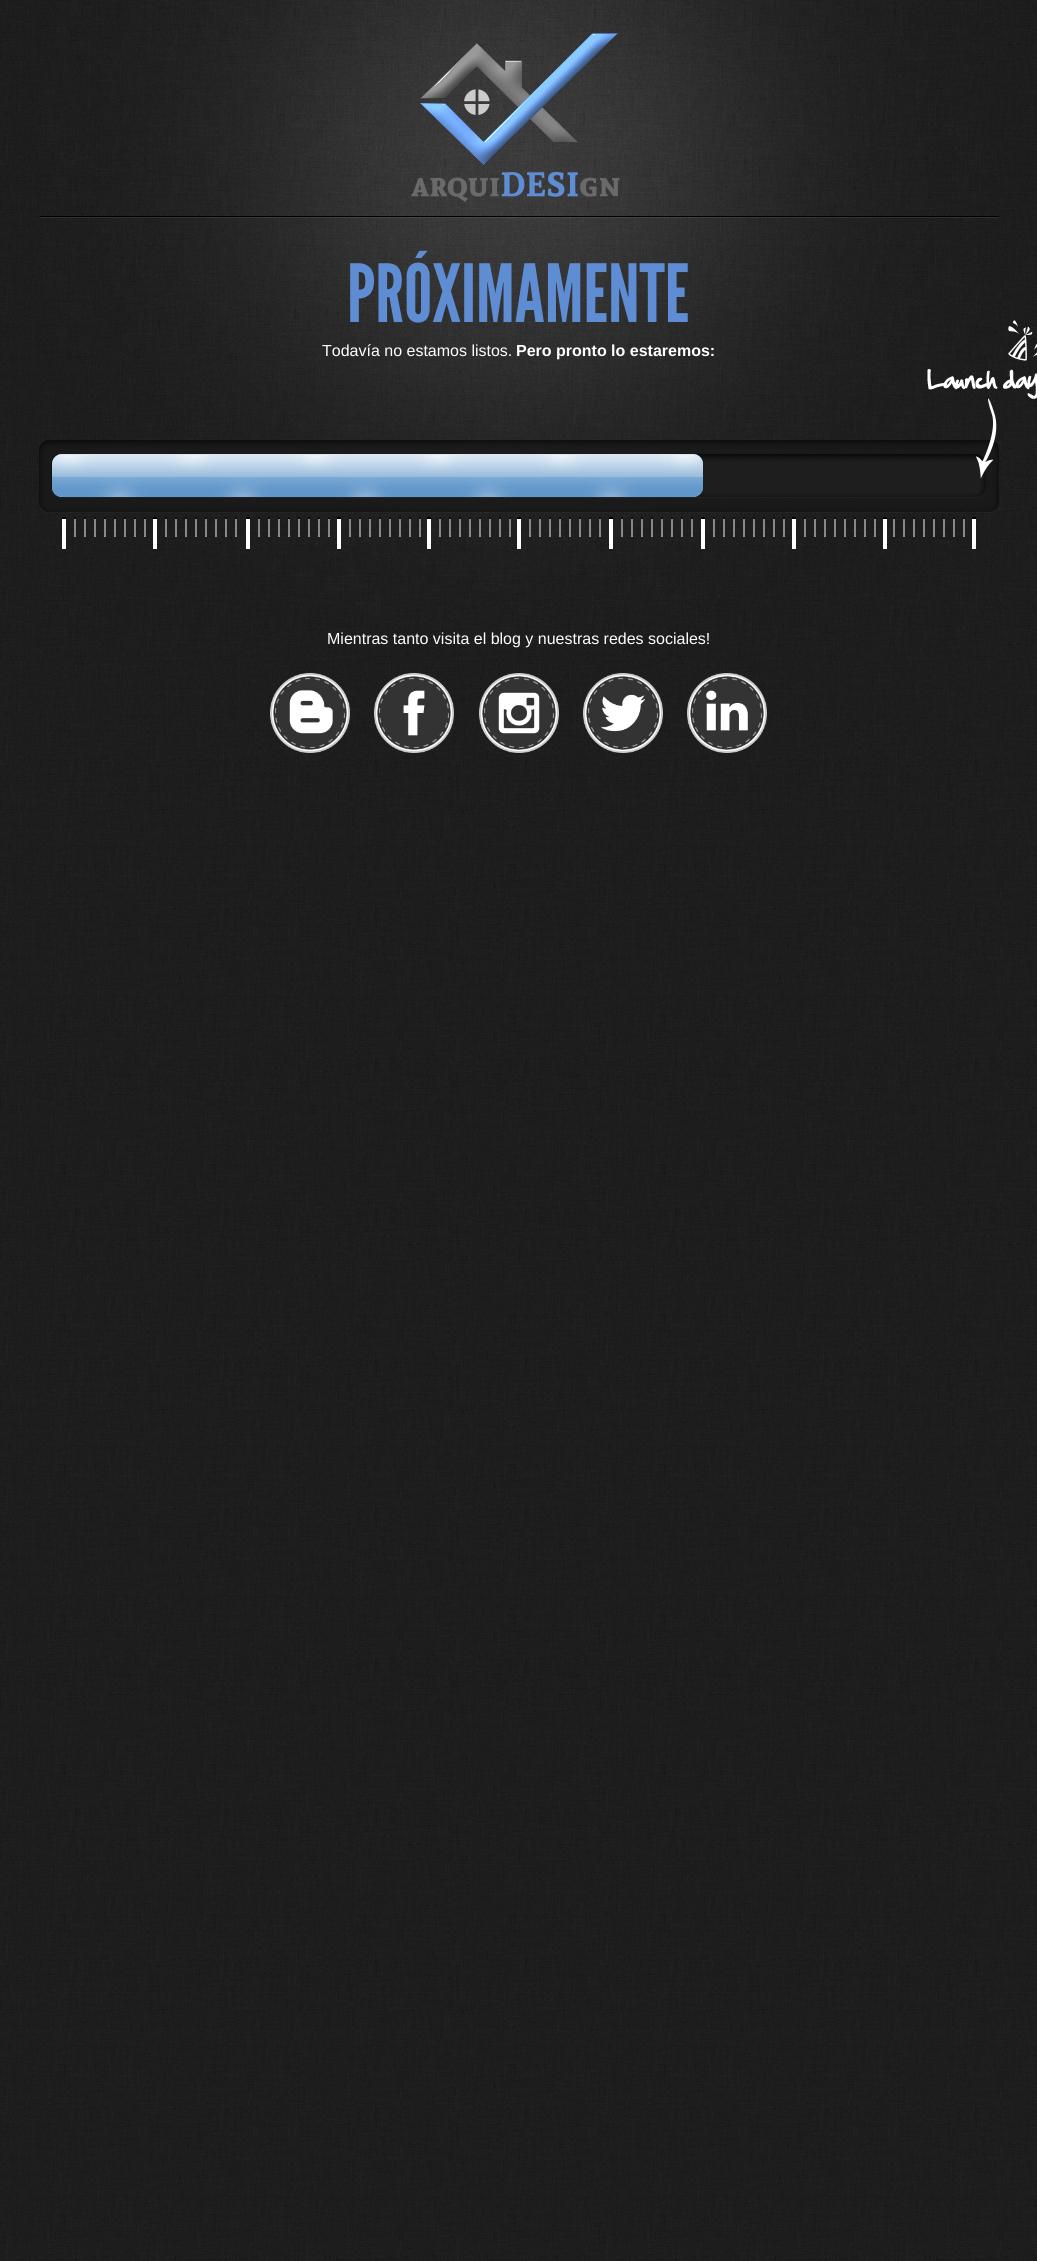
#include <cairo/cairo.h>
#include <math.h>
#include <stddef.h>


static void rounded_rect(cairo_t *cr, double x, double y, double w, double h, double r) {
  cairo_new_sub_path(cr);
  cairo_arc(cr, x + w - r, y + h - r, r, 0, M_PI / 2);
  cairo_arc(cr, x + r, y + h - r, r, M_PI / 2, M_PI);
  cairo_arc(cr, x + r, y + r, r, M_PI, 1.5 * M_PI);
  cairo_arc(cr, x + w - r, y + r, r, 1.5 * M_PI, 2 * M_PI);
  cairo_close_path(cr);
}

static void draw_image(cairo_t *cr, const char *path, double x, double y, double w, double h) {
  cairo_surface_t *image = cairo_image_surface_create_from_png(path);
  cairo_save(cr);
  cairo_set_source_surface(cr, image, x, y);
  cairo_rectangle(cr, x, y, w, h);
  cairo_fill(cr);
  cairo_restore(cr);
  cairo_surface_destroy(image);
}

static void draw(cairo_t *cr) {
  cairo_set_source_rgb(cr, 1, 1, 1);
  cairo_paint(cr);
  draw_image(cr, "images/1.png", 0, 0, 1037, 2261);
  draw_image(cr, "images/2.png", 39, 0, 960, 720);
  draw_image(cr, "images/3.png", 411, 33, 209, 169);
  draw_image(cr, "images/4.png", 39, 216, 960, 2);
  draw_image(cr, "images/5.png", 39, 440, 960, 109);
  cairo_set_source_rgb(cr, 114 / 255.0, 219 / 255.0, 241 / 255.0);
  rounded_rect(cr, 52, 454, 651, 43, 10);
  cairo_fill(cr);
  draw_image(cr, "images/6.png", 52, 454, 651, 43);
  draw_image(cr, "images/7.png", 927, 320, 110, 159);
  draw_image(cr, "images/8.png", 270, 673, 80, 80);
  draw_image(cr, "images/9.png", 374, 673, 80, 80);
  draw_image(cr, "images/10.png", 479, 673, 80, 80);
  draw_image(cr, "images/11.png", 583, 673, 80, 80);
  draw_image(cr, "images/12.png", 687, 673, 80, 80);
  cairo_select_font_face(cr, "League Gothic", CAIRO_FONT_SLANT_NORMAL, CAIRO_FONT_WEIGHT_NORMAL);
  cairo_set_font_size(cr, 80);
  cairo_set_source_rgb(cr, 95 / 255.0, 141 / 255.0, 211 / 255.0);
  cairo_move_to(cr, 347, 322);
  cairo_show_text(cr, "PRÓXIMAMENTE");
  cairo_select_font_face(cr, "Liberation Sans", CAIRO_FONT_SLANT_NORMAL, CAIRO_FONT_WEIGHT_NORMAL);
  cairo_set_font_size(cr, 16);
  cairo_set_source_rgb(cr, 1, 1, 1);
  cairo_move_to(cr, 322, 356);
  cairo_show_text(cr, "Todavía no estamos listos.");
  cairo_select_font_face(cr, "Liberation Sans", CAIRO_FONT_SLANT_NORMAL, CAIRO_FONT_WEIGHT_BOLD);
  cairo_move_to(cr, 516, 356);
  cairo_show_text(cr, "Pero pronto lo estaremos:");
  cairo_select_font_face(cr, "Liberation Sans", CAIRO_FONT_SLANT_NORMAL, CAIRO_FONT_WEIGHT_NORMAL);
  cairo_move_to(cr, 327, 644);
  cairo_show_text(cr, "Mientras tanto visita el blog y nuestras redes sociales!");
}

int main(void) {
  cairo_surface_t *surface = cairo_image_surface_create(CAIRO_FORMAT_RGB24, 1037, 2261);
  cairo_t *cr = cairo_create(surface);
  cairo_font_options_t *options = cairo_font_options_create();
  cairo_font_options_set_hint_metrics(options, CAIRO_HINT_METRICS_OFF);
  cairo_font_options_set_hint_style(options, CAIRO_HINT_STYLE_NONE);
  cairo_set_font_options(cr, options);
  cairo_set_miter_limit(cr, 4);
  draw(cr);
  cairo_surface_write_to_png(surface, "out.png");
  cairo_font_options_destroy(options);
  cairo_destroy(cr);
  cairo_surface_destroy(surface);
  return 0;
}
